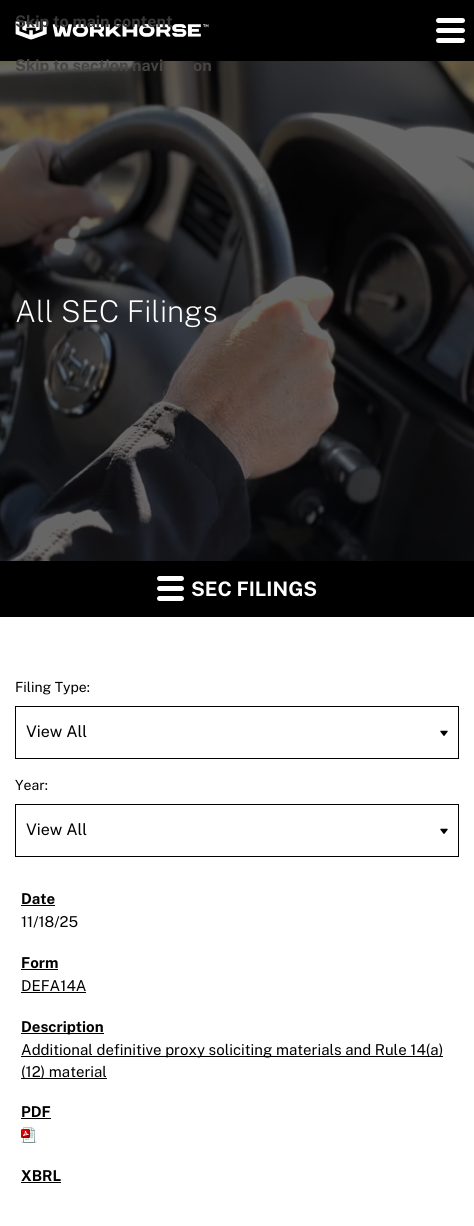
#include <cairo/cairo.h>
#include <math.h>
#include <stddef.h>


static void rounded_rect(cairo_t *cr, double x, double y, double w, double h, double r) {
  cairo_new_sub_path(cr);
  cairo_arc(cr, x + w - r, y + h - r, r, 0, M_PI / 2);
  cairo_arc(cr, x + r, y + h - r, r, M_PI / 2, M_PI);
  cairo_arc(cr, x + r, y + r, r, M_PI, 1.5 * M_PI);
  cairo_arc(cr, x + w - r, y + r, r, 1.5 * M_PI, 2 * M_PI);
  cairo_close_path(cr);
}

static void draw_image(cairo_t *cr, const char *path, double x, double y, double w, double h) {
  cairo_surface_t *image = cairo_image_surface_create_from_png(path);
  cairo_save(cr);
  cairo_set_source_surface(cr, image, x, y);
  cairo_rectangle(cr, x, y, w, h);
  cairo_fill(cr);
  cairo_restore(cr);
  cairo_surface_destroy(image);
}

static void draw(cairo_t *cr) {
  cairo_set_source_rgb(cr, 1, 1, 1);
  cairo_paint(cr);
  cairo_set_source_rgb(cr, 0, 0, 0);
  cairo_rectangle(cr, 0, 0, 474, 61);
  cairo_fill(cr);
  draw_image(cr, "images/1.png", 15, 21, 194, 19);
  cairo_set_source_rgb(cr, 1, 1, 1);
  rounded_rect(cr, 436, 18, 29, 5, 2.5);
  cairo_fill(cr);
  rounded_rect(cr, 436, 28, 29, 5, 2.5);
  cairo_fill(cr);
  rounded_rect(cr, 436, 38, 29, 5, 2.5);
  cairo_fill(cr);
  draw_image(cr, "images/2.png", 0, 61, 474, 500);
  cairo_set_source_rgb(cr, 0, 0, 0);
  cairo_rectangle(cr, 0, 561, 474, 56);
  cairo_fill(cr);
  cairo_set_source_rgb(cr, 1, 1, 1);
  rounded_rect(cr, 157, 576, 27, 5, 2.5);
  cairo_fill(cr);
  rounded_rect(cr, 157, 586, 27, 5, 2.5);
  cairo_fill(cr);
  rounded_rect(cr, 157, 596, 27, 5, 2.5);
  cairo_fill(cr);
  draw_image(cr, "images/3.png", 440, 730, 8, 6);
  cairo_rectangle(cr, 15.5, 706.5, 443, 52);
  cairo_set_source_rgb(cr, 0, 0, 0);
  cairo_set_line_width(cr, 1);
  cairo_stroke(cr);
  draw_image(cr, "images/3.png", 440, 828, 8, 6);
  cairo_rectangle(cr, 15.5, 804.5, 443, 52);
  cairo_stroke(cr);
  cairo_rectangle(cr, 21, 905, 34, 1);
  cairo_fill(cr);
  cairo_rectangle(cr, 21, 969, 37, 1);
  cairo_fill(cr);
  cairo_rectangle(cr, 21, 992, 65, 1);
  cairo_fill(cr);
  cairo_rectangle(cr, 21, 1033, 83, 1);
  cairo_fill(cr);
  cairo_rectangle(cr, 21, 1056, 422, 1);
  cairo_fill(cr);
  cairo_rectangle(cr, 21, 1078, 86, 1);
  cairo_fill(cr);
  cairo_rectangle(cr, 21, 1118, 30, 1);
  cairo_fill(cr);
  draw_image(cr, "images/4.png", 21, 1127, 16, 16);
  cairo_rectangle(cr, 21, 1182, 40, 1);
  cairo_fill(cr);
  cairo_select_font_face(cr, "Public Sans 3 Thin", CAIRO_FONT_SLANT_NORMAL, CAIRO_FONT_WEIGHT_NORMAL);
  cairo_set_font_size(cr, 16);
  cairo_set_source_rgb(cr, 56 / 255.0, 56 / 255.0, 56 / 255.0);
  cairo_move_to(cr, 15, 27);
  cairo_show_text(cr, "Skip to main content");
  cairo_set_source_rgb(cr, 69 / 255.0, 68 / 255.0, 66 / 255.0);
  cairo_move_to(cr, 15, 71);
  cairo_show_text(cr, "Skip to section navi");
  cairo_move_to(cr, 193, 71);
  cairo_show_text(cr, "on");
  cairo_select_font_face(cr, "Public Sans Thin", CAIRO_FONT_SLANT_NORMAL, CAIRO_FONT_WEIGHT_NORMAL);
  cairo_set_font_size(cr, 30);
  cairo_set_source_rgb(cr, 1, 1, 1);
  cairo_move_to(cr, 15, 322);
  cairo_show_text(cr, "All SEC Filings");
  cairo_select_font_face(cr, "Public Sans 3 Thin", CAIRO_FONT_SLANT_NORMAL, CAIRO_FONT_WEIGHT_NORMAL);
  cairo_set_font_size(cr, 20);
  cairo_move_to(cr, 191, 596);
  cairo_show_text(cr, "SEC FILINGS");
  cairo_select_font_face(cr, "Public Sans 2 Thin", CAIRO_FONT_SLANT_NORMAL, CAIRO_FONT_WEIGHT_NORMAL);
  cairo_set_font_size(cr, 14);
  cairo_set_source_rgb(cr, 0, 0, 0);
  cairo_move_to(cr, 15, 692);
  cairo_show_text(cr, "Filing Type:");
  cairo_set_font_size(cr, 16);
  cairo_move_to(cr, 26, 737);
  cairo_show_text(cr, "View All");
  cairo_set_font_size(cr, 14);
  cairo_move_to(cr, 15, 790);
  cairo_show_text(cr, "Year:");
  cairo_set_font_size(cr, 16);
  cairo_move_to(cr, 26, 835);
  cairo_show_text(cr, "View All");
  cairo_select_font_face(cr, "Public Sans 3 Thin", CAIRO_FONT_SLANT_NORMAL, CAIRO_FONT_WEIGHT_NORMAL);
  cairo_set_font_size(cr, 15);
  cairo_move_to(cr, 21, 904);
  cairo_show_text(cr, "Date");
  cairo_select_font_face(cr, "Public Sans 2 Thin", CAIRO_FONT_SLANT_NORMAL, CAIRO_FONT_WEIGHT_NORMAL);
  cairo_move_to(cr, 21, 927);
  cairo_show_text(cr, "11/18/25");
  cairo_select_font_face(cr, "Public Sans 3 Thin", CAIRO_FONT_SLANT_NORMAL, CAIRO_FONT_WEIGHT_NORMAL);
  cairo_move_to(cr, 21, 968);
  cairo_show_text(cr, "Form");
  cairo_select_font_face(cr, "Public Sans 2 Thin", CAIRO_FONT_SLANT_NORMAL, CAIRO_FONT_WEIGHT_NORMAL);
  cairo_move_to(cr, 21, 991);
  cairo_show_text(cr, "DEFA14A");
  cairo_select_font_face(cr, "Public Sans 3 Thin", CAIRO_FONT_SLANT_NORMAL, CAIRO_FONT_WEIGHT_NORMAL);
  cairo_move_to(cr, 21, 1032);
  cairo_show_text(cr, "Description");
  cairo_select_font_face(cr, "Public Sans 2 Thin", CAIRO_FONT_SLANT_NORMAL, CAIRO_FONT_WEIGHT_NORMAL);
  cairo_move_to(cr, 21, 1055);
  cairo_show_text(cr, "Additional definitive proxy soliciting materials and Rule 14(a)");
  cairo_move_to(cr, 21, 1077);
  cairo_show_text(cr, "(12) material");
  cairo_select_font_face(cr, "Public Sans 3 Thin", CAIRO_FONT_SLANT_NORMAL, CAIRO_FONT_WEIGHT_NORMAL);
  cairo_move_to(cr, 21, 1117);
  cairo_show_text(cr, "PDF");
  cairo_move_to(cr, 21, 1181);
  cairo_show_text(cr, "XBRL");
}

int main(void) {
  cairo_surface_t *surface = cairo_image_surface_create(CAIRO_FORMAT_RGB24, 474, 1226);
  cairo_t *cr = cairo_create(surface);
  cairo_font_options_t *options = cairo_font_options_create();
  cairo_font_options_set_hint_metrics(options, CAIRO_HINT_METRICS_OFF);
  cairo_font_options_set_hint_style(options, CAIRO_HINT_STYLE_NONE);
  cairo_set_font_options(cr, options);
  cairo_set_miter_limit(cr, 4);
  draw(cr);
  cairo_surface_write_to_png(surface, "out.png");
  cairo_font_options_destroy(options);
  cairo_destroy(cr);
  cairo_surface_destroy(surface);
  return 0;
}
